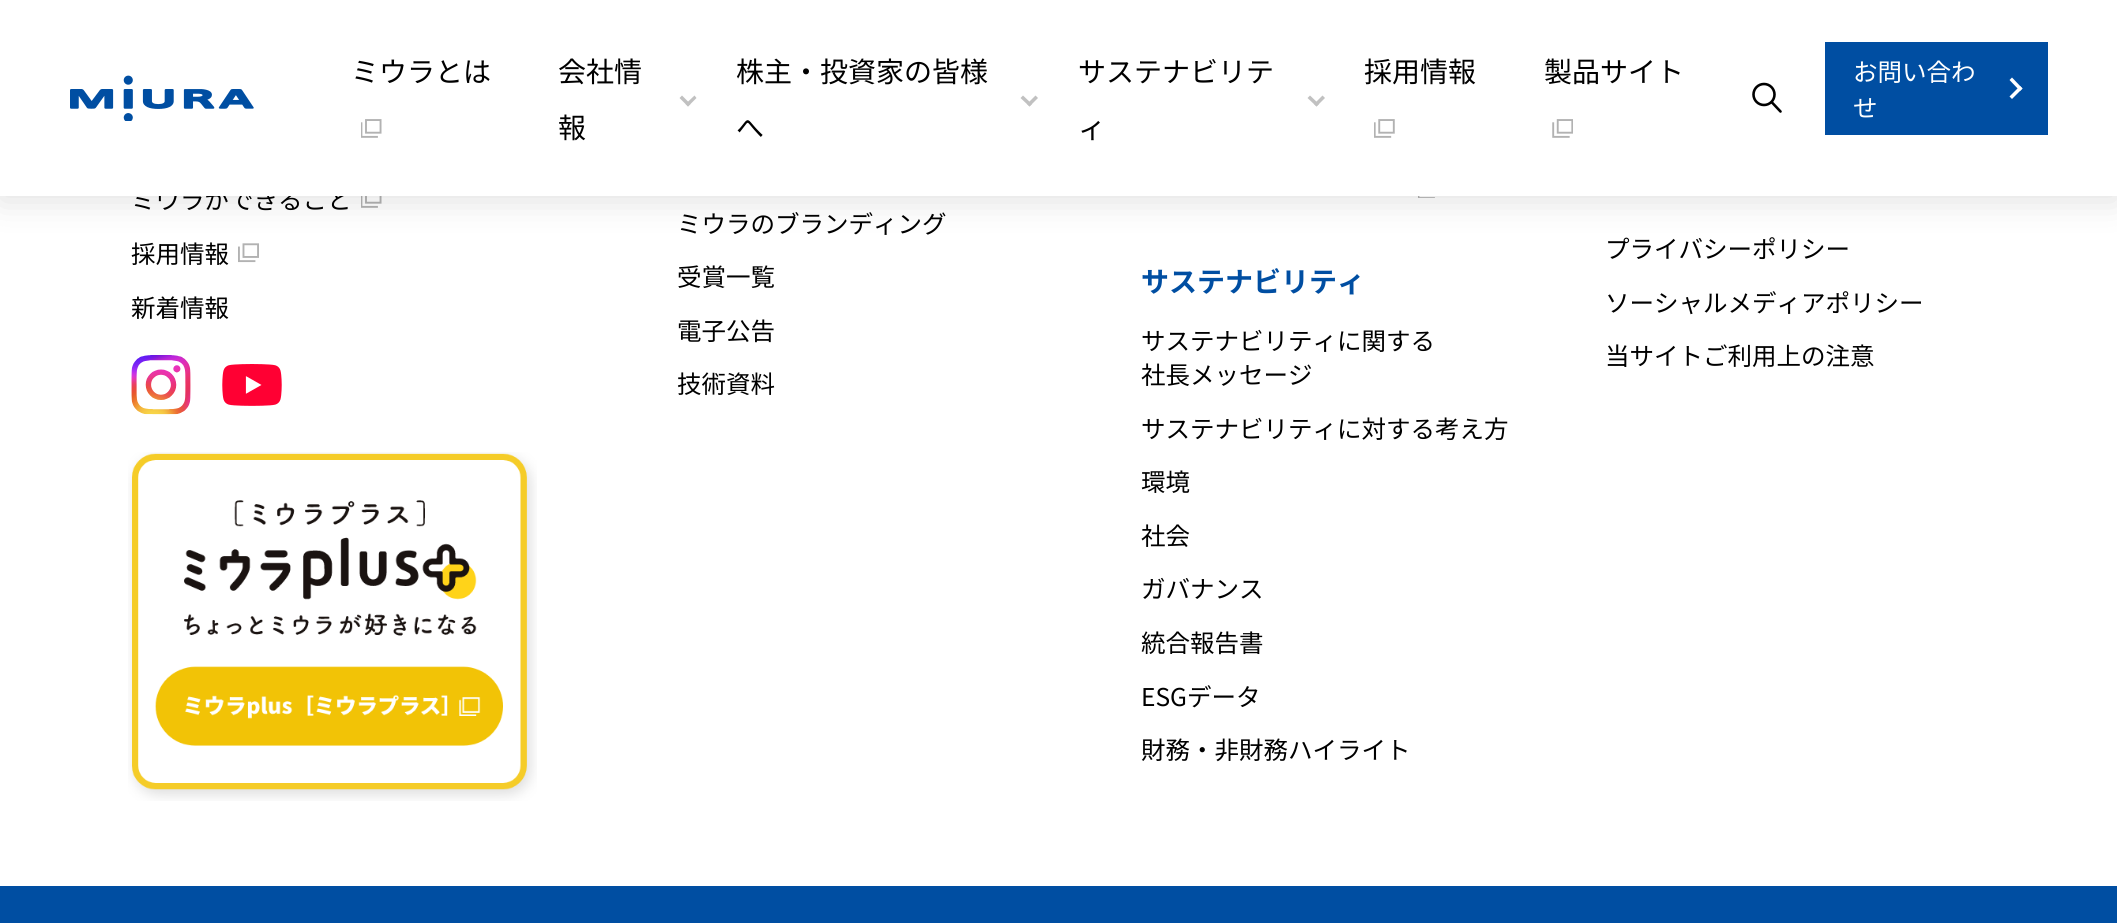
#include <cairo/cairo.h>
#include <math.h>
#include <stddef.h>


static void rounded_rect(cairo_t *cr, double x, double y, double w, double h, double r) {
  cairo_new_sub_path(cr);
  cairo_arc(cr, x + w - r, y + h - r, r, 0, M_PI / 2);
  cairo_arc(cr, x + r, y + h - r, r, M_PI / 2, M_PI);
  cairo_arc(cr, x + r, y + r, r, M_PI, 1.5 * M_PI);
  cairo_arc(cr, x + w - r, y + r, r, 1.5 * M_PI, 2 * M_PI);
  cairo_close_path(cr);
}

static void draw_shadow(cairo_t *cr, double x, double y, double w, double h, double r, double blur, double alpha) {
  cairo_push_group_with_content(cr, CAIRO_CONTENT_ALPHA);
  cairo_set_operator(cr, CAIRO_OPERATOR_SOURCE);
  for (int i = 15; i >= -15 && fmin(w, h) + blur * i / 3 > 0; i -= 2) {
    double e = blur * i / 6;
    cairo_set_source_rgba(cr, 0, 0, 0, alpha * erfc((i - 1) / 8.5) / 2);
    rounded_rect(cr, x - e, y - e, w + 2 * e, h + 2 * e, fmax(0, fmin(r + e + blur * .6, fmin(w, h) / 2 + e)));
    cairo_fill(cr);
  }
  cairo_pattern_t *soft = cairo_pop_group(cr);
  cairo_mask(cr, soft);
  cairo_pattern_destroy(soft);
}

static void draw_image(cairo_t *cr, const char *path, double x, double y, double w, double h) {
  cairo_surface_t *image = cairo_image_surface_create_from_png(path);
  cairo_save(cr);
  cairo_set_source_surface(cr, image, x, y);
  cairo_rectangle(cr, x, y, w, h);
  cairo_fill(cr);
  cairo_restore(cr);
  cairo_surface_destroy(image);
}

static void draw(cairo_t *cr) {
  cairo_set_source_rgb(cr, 1, 1, 1);
  cairo_paint(cr);
  draw_image(cr, "images/5.png", 361, 196, 21, 12);
  draw_image(cr, "images/6.png", 238, 243, 21, 20);
  draw_image(cr, "images/9.png", 1418, 196, 17, 2);
  cairo_set_source_rgb(cr, 0, 0, 0);
  draw_shadow(cr, 0, 5, 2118, 196, 0, 17.5, 0.12);
  draw_image(cr, "images/7.png", 131, 355, 60, 60);
  draw_image(cr, "images/8.png", 222, 364, 60, 42);
  draw_image(cr, "images/10.png", 128, 452, 409, 349);
  cairo_set_source_rgb(cr, 0, 78 / 255.0, 162 / 255.0);
  cairo_rectangle(cr, 0, 886, 2117, 37);
  cairo_fill(cr);
  cairo_select_font_face(cr, "Noto Sans JP", CAIRO_FONT_SLANT_NORMAL, CAIRO_FONT_WEIGHT_NORMAL);
  cairo_set_font_size(cr, 24.5);
  cairo_set_source_rgb(cr, 0, 0, 0);
  cairo_move_to(cr, 131, 209);
  cairo_show_text(cr, "ミウラができること");
  cairo_set_source_rgb(cr, 1, 1, 1);
  cairo_rectangle(cr, 0, 0, 2117, 196);
  cairo_fill(cr);
  cairo_set_source_rgb(cr, 0, 78 / 255.0, 162 / 255.0);
  cairo_rectangle(cr, 1825, 42, 223, 93);
  cairo_fill(cr);
  cairo_set_source_rgb(cr, 1, 1, 1);
  cairo_new_path(cr);
  cairo_move_to(cr, 2012, 77.5);
  cairo_line_to(cr, 2022.5, 88.5);
  cairo_line_to(cr, 2020, 91);
  cairo_line_to(cr, 2009.5, 80);
  cairo_close_path(cr);
  cairo_fill(cr);
  cairo_new_path(cr);
  cairo_move_to(cr, 2020, 86);
  cairo_line_to(cr, 2022.5, 88.5);
  cairo_line_to(cr, 2012, 99);
  cairo_line_to(cr, 2009.5, 96.5);
  cairo_close_path(cr);
  cairo_fill(cr);
  cairo_move_to(cr, 1853, 117);
  cairo_show_text(cr, "せ");
  cairo_move_to(cr, 1853, 81);
  cairo_show_text(cr, "お問い合わ");
  draw_image(cr, "images/4.png", 1552, 119, 21, 19);
  cairo_set_font_size(cr, 28);
  cairo_set_source_rgb(cr, 0, 0, 0);
  cairo_move_to(cr, 1544, 82);
  cairo_show_text(cr, "製品サイト");
  draw_image(cr, "images/3.png", 1374, 119, 21, 19);
  cairo_move_to(cr, 1364, 82);
  cairo_show_text(cr, "採用情報");
  cairo_set_source_rgb(cr, 193 / 255.0, 193 / 255.0, 193 / 255.0);
  cairo_new_path(cr);
  cairo_move_to(cr, 1322.5, 95.5);
  cairo_line_to(cr, 1325, 98);
  cairo_line_to(cr, 1316.5, 106.5);
  cairo_line_to(cr, 1314, 104);
  cairo_close_path(cr);
  cairo_fill(cr);
  cairo_new_path(cr);
  cairo_move_to(cr, 1310, 95.5);
  cairo_line_to(cr, 1319, 104);
  cairo_line_to(cr, 1316.5, 106.5);
  cairo_line_to(cr, 1307.5, 98);
  cairo_close_path(cr);
  cairo_fill(cr);
  cairo_set_source_rgb(cr, 0, 0, 0);
  cairo_move_to(cr, 1078, 138);
  cairo_show_text(cr, "ィ");
  cairo_move_to(cr, 1078, 82);
  cairo_show_text(cr, "サステナビリテ");
  cairo_set_source_rgb(cr, 193 / 255.0, 193 / 255.0, 193 / 255.0);
  cairo_new_path(cr);
  cairo_move_to(cr, 1035.5, 95.5);
  cairo_line_to(cr, 1038, 98);
  cairo_line_to(cr, 1029.5, 106.5);
  cairo_line_to(cr, 1027, 104);
  cairo_close_path(cr);
  cairo_fill(cr);
  cairo_new_path(cr);
  cairo_move_to(cr, 1023, 95.5);
  cairo_line_to(cr, 1032, 104);
  cairo_line_to(cr, 1029.5, 106.5);
  cairo_line_to(cr, 1020.5, 98);
  cairo_close_path(cr);
  cairo_fill(cr);
  cairo_set_source_rgb(cr, 0, 0, 0);
  cairo_move_to(cr, 736, 138);
  cairo_show_text(cr, "へ");
  cairo_move_to(cr, 736, 82);
  cairo_show_text(cr, "株主・投資家の皆様");
  cairo_set_source_rgb(cr, 193 / 255.0, 193 / 255.0, 193 / 255.0);
  cairo_new_path(cr);
  cairo_move_to(cr, 694.5, 95.5);
  cairo_line_to(cr, 696.5, 98);
  cairo_line_to(cr, 688, 106.5);
  cairo_line_to(cr, 685.5, 104);
  cairo_close_path(cr);
  cairo_fill(cr);
  cairo_new_path(cr);
  cairo_move_to(cr, 682, 95.5);
  cairo_line_to(cr, 690.5, 104);
  cairo_line_to(cr, 688, 106.5);
  cairo_line_to(cr, 679.5, 98);
  cairo_close_path(cr);
  cairo_fill(cr);
  cairo_set_source_rgb(cr, 0, 0, 0);
  cairo_move_to(cr, 558, 138);
  cairo_show_text(cr, "報");
  cairo_move_to(cr, 558, 82);
  cairo_show_text(cr, "会社情");
  draw_image(cr, "images/2.png", 361, 119, 21, 19);
  cairo_move_to(cr, 351, 82);
  cairo_show_text(cr, "ミウラとは");
  cairo_new_path(cr);
  cairo_arc(cr, 1764, 94.5, 10.5, 0, 2 * M_PI);
  cairo_set_line_width(cr, 2.6);
  cairo_stroke(cr);
  cairo_new_path(cr);
  cairo_move_to(cr, 1772, 102.5);
  cairo_line_to(cr, 1780.5, 111.5);
  cairo_set_line_cap(cr, CAIRO_LINE_CAP_ROUND);
  cairo_stroke(cr);
  draw_image(cr, "images/1.png", 70, 75, 184, 46);
  cairo_set_font_size(cr, 24.5);
  cairo_move_to(cr, 131, 263);
  cairo_show_text(cr, "採用情報");
  cairo_move_to(cr, 131, 317);
  cairo_show_text(cr, "新着情報");
  cairo_move_to(cr, 677, 233);
  cairo_show_text(cr, "ミウラのブランディング");
  cairo_move_to(cr, 677, 286);
  cairo_show_text(cr, "受賞一覧");
  cairo_move_to(cr, 677, 340);
  cairo_show_text(cr, "電子公告");
  cairo_move_to(cr, 677, 393);
  cairo_show_text(cr, "技術資料");
  cairo_select_font_face(cr, "Noto Sans JP", CAIRO_FONT_SLANT_NORMAL, CAIRO_FONT_WEIGHT_BOLD);
  cairo_set_font_size(cr, 28);
  cairo_set_source_rgb(cr, 0, 78 / 255.0, 162 / 255.0);
  cairo_move_to(cr, 1141, 292);
  cairo_show_text(cr, "サステナビリティ");
  cairo_select_font_face(cr, "Noto Sans JP", CAIRO_FONT_SLANT_NORMAL, CAIRO_FONT_WEIGHT_NORMAL);
  cairo_set_font_size(cr, 24.5);
  cairo_set_source_rgb(cr, 0, 0, 0);
  cairo_move_to(cr, 1141, 350);
  cairo_show_text(cr, "サステナビリティに関する");
  cairo_move_to(cr, 1141, 384);
  cairo_show_text(cr, "社長メッセージ");
  cairo_move_to(cr, 1141, 438);
  cairo_show_text(cr, "サステナビリティに対する考え方");
  cairo_move_to(cr, 1141, 491);
  cairo_show_text(cr, "環境");
  cairo_move_to(cr, 1141, 545);
  cairo_show_text(cr, "社会");
  cairo_move_to(cr, 1141, 598);
  cairo_show_text(cr, "ガバナンス");
  cairo_move_to(cr, 1141, 652);
  cairo_show_text(cr, "統合報告書");
  cairo_move_to(cr, 1141, 706);
  cairo_show_text(cr, "ESGデータ");
  cairo_move_to(cr, 1141, 759);
  cairo_show_text(cr, "財務・非財務ハイライト");
  cairo_move_to(cr, 1605, 258);
  cairo_show_text(cr, "プライバシーポリシー");
  cairo_move_to(cr, 1605, 312);
  cairo_show_text(cr, "ソーシャルメディアポリシー");
  cairo_move_to(cr, 1605, 365);
  cairo_show_text(cr, "当サイトご利用上の注意");
}

int main(void) {
  cairo_surface_t *surface = cairo_image_surface_create(CAIRO_FORMAT_RGB24, 2117, 923);
  cairo_t *cr = cairo_create(surface);
  cairo_font_options_t *options = cairo_font_options_create();
  cairo_font_options_set_hint_metrics(options, CAIRO_HINT_METRICS_OFF);
  cairo_font_options_set_hint_style(options, CAIRO_HINT_STYLE_NONE);
  cairo_set_font_options(cr, options);
  cairo_set_miter_limit(cr, 4);
  draw(cr);
  cairo_surface_write_to_png(surface, "out.png");
  cairo_font_options_destroy(options);
  cairo_destroy(cr);
  cairo_surface_destroy(surface);
  return 0;
}
